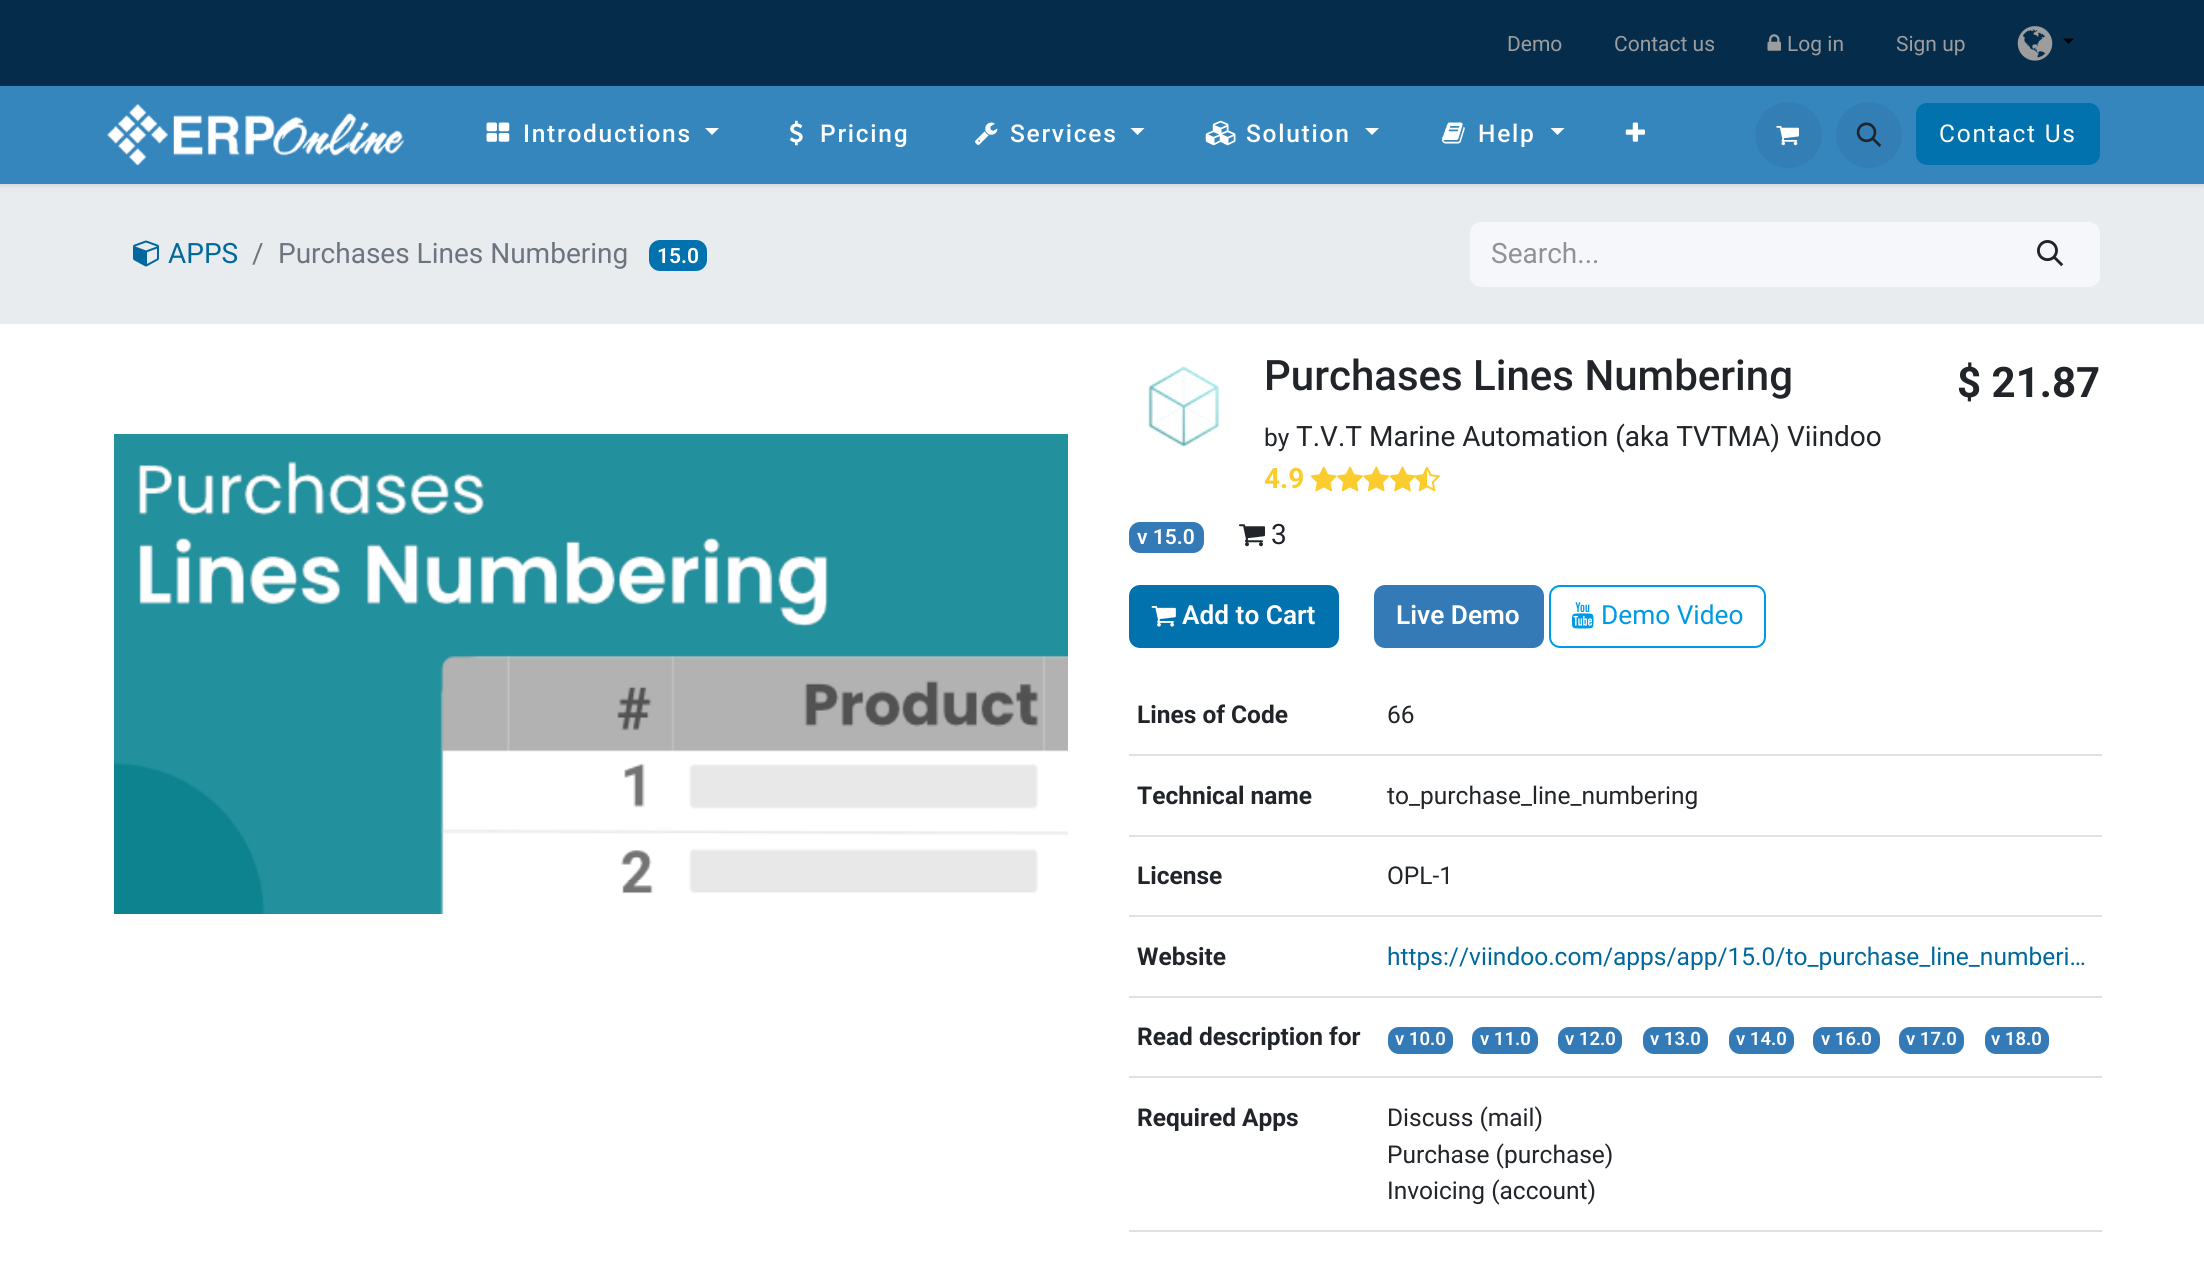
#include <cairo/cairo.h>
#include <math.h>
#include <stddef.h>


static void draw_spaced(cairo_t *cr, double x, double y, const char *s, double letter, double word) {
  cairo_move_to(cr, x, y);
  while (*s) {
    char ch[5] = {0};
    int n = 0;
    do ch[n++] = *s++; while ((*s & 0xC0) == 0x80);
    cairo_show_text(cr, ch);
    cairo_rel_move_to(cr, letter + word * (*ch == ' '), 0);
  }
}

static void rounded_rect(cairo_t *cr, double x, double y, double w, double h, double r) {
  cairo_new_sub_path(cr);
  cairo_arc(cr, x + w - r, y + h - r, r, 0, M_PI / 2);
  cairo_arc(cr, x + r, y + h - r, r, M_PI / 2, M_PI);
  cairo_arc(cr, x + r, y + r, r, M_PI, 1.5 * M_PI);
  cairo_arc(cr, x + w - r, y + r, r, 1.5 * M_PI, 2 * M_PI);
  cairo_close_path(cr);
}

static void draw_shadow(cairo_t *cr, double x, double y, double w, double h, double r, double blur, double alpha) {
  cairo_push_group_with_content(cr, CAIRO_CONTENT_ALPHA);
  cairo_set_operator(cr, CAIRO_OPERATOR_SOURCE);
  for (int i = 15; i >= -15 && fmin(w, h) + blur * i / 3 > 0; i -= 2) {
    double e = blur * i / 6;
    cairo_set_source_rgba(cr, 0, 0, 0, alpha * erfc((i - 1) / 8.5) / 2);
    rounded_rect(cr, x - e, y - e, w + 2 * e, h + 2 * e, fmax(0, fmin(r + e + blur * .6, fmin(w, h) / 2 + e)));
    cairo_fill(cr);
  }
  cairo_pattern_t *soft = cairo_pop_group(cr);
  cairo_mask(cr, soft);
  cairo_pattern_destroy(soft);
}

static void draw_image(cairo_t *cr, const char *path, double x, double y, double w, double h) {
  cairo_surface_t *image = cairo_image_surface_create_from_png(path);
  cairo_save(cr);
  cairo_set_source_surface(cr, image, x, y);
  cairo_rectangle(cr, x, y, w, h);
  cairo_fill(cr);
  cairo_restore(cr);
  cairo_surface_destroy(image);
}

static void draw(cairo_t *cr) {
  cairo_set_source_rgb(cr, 1, 1, 1);
  cairo_paint(cr);
  cairo_set_source_rgb(cr, 233 / 255.0, 236 / 255.0, 239 / 255.0);
  cairo_rectangle(cr, 0, 184, 2204, 140);
  cairo_fill(cr);
  cairo_set_source_rgb(cr, 0, 0, 0);
  draw_shadow(cr, 0, 88, 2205, 98, 0, 2.5, 0.1);
  cairo_set_source_rgb(cr, 5 / 255.0, 45 / 255.0, 75 / 255.0);
  cairo_rectangle(cr, 0, 0, 2204, 86);
  cairo_fill(cr);
  draw_image(cr, "images/1.png", 1767, 34, 14, 17);
  draw_image(cr, "images/2.png", 2017, 26, 36, 35);
  cairo_set_source_rgb(cr, 0, 0, 0);
  cairo_new_path(cr);
  cairo_move_to(cr, 2063, 38.5);
  cairo_line_to(cr, 2074, 38.5);
  cairo_line_to(cr, 2068.5, 44);
  cairo_close_path(cr);
  cairo_fill(cr);
  cairo_set_source_rgb(cr, 54 / 255.0, 134 / 255.0, 190 / 255.0);
  cairo_rectangle(cr, 0, 86, 2204, 98);
  cairo_fill(cr);
  draw_image(cr, "images/3.png", 107, 103, 297, 63);
  draw_image(cr, "images/4.png", 486, 122, 24, 20);
  cairo_set_source_rgb(cr, 1, 1, 1);
  cairo_new_path(cr);
  cairo_move_to(cr, 705, 128);
  cairo_line_to(cr, 719, 128);
  cairo_line_to(cr, 712, 135);
  cairo_close_path(cr);
  cairo_fill(cr);
  draw_image(cr, "images/5.png", 789, 120, 14, 26);
  draw_image(cr, "images/6.png", 975, 122, 23, 23);
  cairo_new_path(cr);
  cairo_move_to(cr, 1130.5, 128);
  cairo_line_to(cr, 1144.5, 128);
  cairo_line_to(cr, 1137.5, 135);
  cairo_close_path(cr);
  cairo_fill(cr);
  draw_image(cr, "images/7.png", 1205, 120, 31, 26);
  cairo_new_path(cr);
  cairo_move_to(cr, 1365, 128);
  cairo_line_to(cr, 1379, 128);
  cairo_line_to(cr, 1372, 135);
  cairo_close_path(cr);
  cairo_fill(cr);
  draw_image(cr, "images/8.png", 1442, 122, 23, 22);
  cairo_new_path(cr);
  cairo_move_to(cr, 1550.5, 128);
  cairo_line_to(cr, 1564.5, 128);
  cairo_line_to(cr, 1557.5, 135);
  cairo_close_path(cr);
  cairo_fill(cr);
  draw_image(cr, "images/9.png", 1625, 122, 20, 20);
  cairo_set_source_rgb(cr, 51 / 255.0, 127 / 255.0, 181 / 255.0);
  rounded_rect(cr, 1755, 102, 67, 66, 33);
  cairo_fill(cr);
  draw_image(cr, "images/10.png", 1776, 126, 23, 20);
  cairo_arc(cr, 1869, 135, 33, 0, 2 * M_PI);
  cairo_fill(cr);
  draw_image(cr, "images/11.png", 1856, 122, 26, 25);
  cairo_set_source_rgb(cr, 1 / 255.0, 114 / 255.0, 173 / 255.0);
  rounded_rect(cr, 1917, 104, 182, 60, 10);
  cairo_fill_preserve(cr);
  cairo_stroke(cr);
  draw_image(cr, "images/12.png", 133, 240, 26, 27);
  rounded_rect(cr, 649, 240, 58, 31, 11);
  cairo_fill(cr);
  cairo_set_source_rgb(cr, 246 / 255.0, 247 / 255.0, 250 / 255.0);
  cairo_new_path(cr);
  cairo_move_to(cr, 1481, 222);
  cairo_line_to(cr, 2002, 222);
  cairo_line_to(cr, 2002, 287);
  cairo_line_to(cr, 1481, 287);
  cairo_curve_to(cr, 1475, 287, 1470, 282, 1470, 276);
  cairo_line_to(cr, 1470, 233);
  cairo_curve_to(cr, 1470, 227, 1475, 222, 1481, 222);
  cairo_close_path(cr);
  cairo_fill(cr);
  cairo_new_path(cr);
  cairo_move_to(cr, 2001, 223);
  cairo_line_to(cr, 2089, 223);
  cairo_curve_to(cr, 2094.5, 223, 2099, 227.5, 2099, 233);
  cairo_line_to(cr, 2099, 276);
  cairo_curve_to(cr, 2099, 281.5, 2094.5, 286, 2089, 286);
  cairo_line_to(cr, 2001, 286);
  cairo_close_path(cr);
  cairo_fill_preserve(cr);
  cairo_stroke(cr);
  draw_image(cr, "images/13.png", 2037, 240, 27, 27);
  draw_image(cr, "images/14.png", 114, 434, 954, 480);
  draw_image(cr, "images/15.png", 1148, 366, 71, 81);
  draw_image(cr, "images/16.png", 1310, 466, 27, 26);
  draw_image(cr, "images/17.png", 1337, 466, 26, 26);
  draw_image(cr, "images/18.png", 1363, 466, 27, 26);
  draw_image(cr, "images/19.png", 1389, 466, 27, 26);
  draw_image(cr, "images/20.png", 1414, 466, 26, 26);
  cairo_set_source_rgb(cr, 51 / 255.0, 122 / 255.0, 183 / 255.0);
  rounded_rect(cr, 1129, 522, 75, 31, 11);
  cairo_fill(cr);
  draw_image(cr, "images/21.png", 1239, 524, 26, 23);
  cairo_set_source_rgb(cr, 1 / 255.0, 114 / 255.0, 173 / 255.0);
  rounded_rect(cr, 1130, 586, 208, 61, 10);
  cairo_fill_preserve(cr);
  cairo_stroke(cr);
  draw_image(cr, "images/22.png", 1151, 606, 25, 21);
  cairo_set_source_rgb(cr, 51 / 255.0, 122 / 255.0, 183 / 255.0);
  rounded_rect(cr, 1375, 586, 168, 61, 10);
  cairo_fill_preserve(cr);
  cairo_stroke(cr);
  rounded_rect(cr, 1550, 586, 215, 61, 10);
  cairo_set_source_rgb(cr, 0, 153 / 255.0, 230 / 255.0);
  cairo_stroke(cr);
  draw_image(cr, "images/23.png", 1571, 602, 23, 27);
  cairo_set_source_rgb(cr, 222 / 255.0, 226 / 255.0, 230 / 255.0);
  cairo_rectangle(cr, 1129, 754, 973, 2);
  cairo_fill(cr);
  cairo_rectangle(cr, 1129, 835, 973, 2);
  cairo_fill(cr);
  cairo_rectangle(cr, 1129, 915, 973, 2);
  cairo_fill(cr);
  cairo_rectangle(cr, 1129, 996, 973, 2);
  cairo_fill(cr);
  cairo_rectangle(cr, 1129, 1076, 973, 2);
  cairo_fill(cr);
  cairo_set_source_rgb(cr, 51 / 255.0, 122 / 255.0, 183 / 255.0);
  rounded_rect(cr, 1388, 1027, 65, 27, 11);
  cairo_fill(cr);
  rounded_rect(cr, 1472, 1027, 66, 27, 11);
  cairo_fill(cr);
  rounded_rect(cr, 1558, 1027, 64, 27, 11);
  cairo_fill(cr);
  rounded_rect(cr, 1643, 1027, 65, 27, 11);
  cairo_fill(cr);
  rounded_rect(cr, 1729, 1027, 65, 27, 11);
  cairo_fill(cr);
  rounded_rect(cr, 1813, 1027, 67, 27, 11);
  cairo_fill(cr);
  rounded_rect(cr, 1899, 1027, 65, 27, 11);
  cairo_fill(cr);
  rounded_rect(cr, 1985, 1027, 64, 27, 11);
  cairo_fill(cr);
  cairo_set_source_rgb(cr, 222 / 255.0, 226 / 255.0, 230 / 255.0);
  cairo_rectangle(cr, 1129, 1230, 973, 2);
  cairo_fill(cr);
  cairo_select_font_face(cr, "Roboto", CAIRO_FONT_SLANT_NORMAL, CAIRO_FONT_WEIGHT_NORMAL);
  cairo_set_font_size(cr, 21);
  cairo_set_source_rgb(cr, 157 / 255.0, 157 / 255.0, 157 / 255.0);
  cairo_move_to(cr, 1507, 51);
  cairo_show_text(cr, "Demo");
  cairo_move_to(cr, 1614, 51);
  cairo_show_text(cr, "Contact us");
  cairo_move_to(cr, 1787, 51);
  cairo_show_text(cr, "Log in");
  cairo_move_to(cr, 1896, 51);
  cairo_show_text(cr, "Sign up");
  cairo_select_font_face(cr, "Roboto Medium", CAIRO_FONT_SLANT_NORMAL, CAIRO_FONT_WEIGHT_NORMAL);
  cairo_set_font_size(cr, 24.5);
  cairo_set_source_rgb(cr, 1, 1, 1);
  draw_spaced(cr, 523, 142, "Introductions", 1.75, 0);
  draw_spaced(cr, 820, 142, "Pricing", 1.75, 0);
  draw_spaced(cr, 1010, 142, "Services", 1.75, 0);
  draw_spaced(cr, 1246, 142, "Solution", 1.75, 0);
  draw_spaced(cr, 1478, 142, "Help", 1.75, 0);
  cairo_select_font_face(cr, "Roboto", CAIRO_FONT_SLANT_NORMAL, CAIRO_FONT_WEIGHT_NORMAL);
  draw_spaced(cr, 1939, 142, "Contact Us", 1.75, 0);
  cairo_set_font_size(cr, 28);
  cairo_set_source_rgb(cr, 1 / 255.0, 104 / 255.0, 158 / 255.0);
  cairo_move_to(cr, 168, 263);
  cairo_show_text(cr, "APPS");
  cairo_set_source_rgb(cr, 108 / 255.0, 117 / 255.0, 125 / 255.0);
  cairo_move_to(cr, 252, 263);
  cairo_show_text(cr, "/");
  cairo_move_to(cr, 278, 263);
  cairo_show_text(cr, "Purchases Lines Numbering");
  cairo_select_font_face(cr, "Roboto SemiBold", CAIRO_FONT_SLANT_NORMAL, CAIRO_FONT_WEIGHT_NORMAL);
  cairo_set_font_size(cr, 21);
  cairo_set_source_rgb(cr, 1, 1, 1);
  cairo_move_to(cr, 657, 263);
  cairo_show_text(cr, "15.0");
  cairo_select_font_face(cr, "Roboto", CAIRO_FONT_SLANT_NORMAL, CAIRO_FONT_WEIGHT_NORMAL);
  cairo_set_font_size(cr, 28);
  cairo_set_source_rgb(cr, 144 / 255.0, 146 / 255.0, 148 / 255.0);
  cairo_move_to(cr, 1491, 263);
  cairo_show_text(cr, "Search...");
  cairo_select_font_face(cr, "Roboto Medium", CAIRO_FONT_SLANT_NORMAL, CAIRO_FONT_WEIGHT_NORMAL);
  cairo_set_font_size(cr, 42);
  cairo_set_source_rgb(cr, 33 / 255.0, 37 / 255.0, 41 / 255.0);
  cairo_move_to(cr, 1264, 390);
  cairo_show_text(cr, "Purchases Lines Numbering");
  cairo_select_font_face(cr, "Roboto", CAIRO_FONT_SLANT_NORMAL, CAIRO_FONT_WEIGHT_NORMAL);
  cairo_set_font_size(cr, 24.5);
  cairo_move_to(cr, 1264, 446);
  cairo_show_text(cr, "by");
  cairo_set_font_size(cr, 28);
  cairo_move_to(cr, 1296, 446);
  cairo_show_text(cr, "T.V.T Marine Automation (aka TVTMA) Viindoo");
  cairo_select_font_face(cr, "Roboto", CAIRO_FONT_SLANT_NORMAL, CAIRO_FONT_WEIGHT_BOLD);
  cairo_set_source_rgb(cr, 250 / 255.0, 204 / 255.0, 46 / 255.0);
  cairo_move_to(cr, 1264, 488);
  cairo_show_text(cr, "4.9");
  cairo_set_font_size(cr, 42);
  cairo_set_source_rgb(cr, 33 / 255.0, 37 / 255.0, 41 / 255.0);
  cairo_move_to(cr, 1957, 397);
  cairo_show_text(cr, "$ 21.87");
  cairo_select_font_face(cr, "Roboto SemiBold", CAIRO_FONT_SLANT_NORMAL, CAIRO_FONT_WEIGHT_NORMAL);
  cairo_set_font_size(cr, 21);
  cairo_set_source_rgb(cr, 1, 1, 1);
  cairo_move_to(cr, 1137, 544);
  cairo_show_text(cr, "v 15.0");
  cairo_select_font_face(cr, "Roboto", CAIRO_FONT_SLANT_NORMAL, CAIRO_FONT_WEIGHT_NORMAL);
  cairo_set_font_size(cr, 28);
  cairo_set_source_rgb(cr, 33 / 255.0, 37 / 255.0, 41 / 255.0);
  cairo_move_to(cr, 1271, 544);
  cairo_show_text(cr, "3");
  cairo_select_font_face(cr, "Roboto SemiBold", CAIRO_FONT_SLANT_NORMAL, CAIRO_FONT_WEIGHT_NORMAL);
  cairo_set_font_size(cr, 26.25);
  cairo_set_source_rgb(cr, 1, 1, 1);
  cairo_move_to(cr, 1182, 624);
  cairo_show_text(cr, "Add to Cart");
  cairo_move_to(cr, 1396, 624);
  cairo_show_text(cr, "Live Demo");
  cairo_select_font_face(cr, "Roboto", CAIRO_FONT_SLANT_NORMAL, CAIRO_FONT_WEIGHT_NORMAL);
  cairo_set_source_rgb(cr, 0, 153 / 255.0, 230 / 255.0);
  cairo_move_to(cr, 1601, 624);
  cairo_show_text(cr, "Demo Video");
  cairo_select_font_face(cr, "Roboto", CAIRO_FONT_SLANT_NORMAL, CAIRO_FONT_WEIGHT_BOLD);
  cairo_set_font_size(cr, 24.5);
  cairo_set_source_rgb(cr, 33 / 255.0, 37 / 255.0, 41 / 255.0);
  cairo_move_to(cr, 1137, 723);
  cairo_show_text(cr, "Lines of Code");
  cairo_select_font_face(cr, "Roboto", CAIRO_FONT_SLANT_NORMAL, CAIRO_FONT_WEIGHT_NORMAL);
  cairo_move_to(cr, 1387, 723);
  cairo_show_text(cr, "66");
  cairo_select_font_face(cr, "Roboto", CAIRO_FONT_SLANT_NORMAL, CAIRO_FONT_WEIGHT_BOLD);
  cairo_move_to(cr, 1137, 804);
  cairo_show_text(cr, "Technical name");
  cairo_select_font_face(cr, "Roboto", CAIRO_FONT_SLANT_NORMAL, CAIRO_FONT_WEIGHT_NORMAL);
  cairo_move_to(cr, 1387, 804);
  cairo_show_text(cr, "to_purchase_line_numbering");
  cairo_select_font_face(cr, "Roboto", CAIRO_FONT_SLANT_NORMAL, CAIRO_FONT_WEIGHT_BOLD);
  cairo_move_to(cr, 1137, 884);
  cairo_show_text(cr, "License");
  cairo_select_font_face(cr, "Roboto", CAIRO_FONT_SLANT_NORMAL, CAIRO_FONT_WEIGHT_NORMAL);
  cairo_move_to(cr, 1387, 884);
  cairo_show_text(cr, "OPL-1");
  cairo_select_font_face(cr, "Roboto", CAIRO_FONT_SLANT_NORMAL, CAIRO_FONT_WEIGHT_BOLD);
  cairo_move_to(cr, 1137, 965);
  cairo_show_text(cr, "Website");
  cairo_select_font_face(cr, "Roboto", CAIRO_FONT_SLANT_NORMAL, CAIRO_FONT_WEIGHT_NORMAL);
  cairo_set_source_rgb(cr, 1 / 255.0, 104 / 255.0, 158 / 255.0);
  cairo_move_to(cr, 1387, 965);
  cairo_show_text(cr, "https://viindoo.com/apps/app/15.0/to_purchase_line_numberi…");
  cairo_select_font_face(cr, "Roboto", CAIRO_FONT_SLANT_NORMAL, CAIRO_FONT_WEIGHT_BOLD);
  cairo_set_source_rgb(cr, 33 / 255.0, 37 / 255.0, 41 / 255.0);
  cairo_move_to(cr, 1137, 1045);
  cairo_show_text(cr, "Read description for");
  cairo_select_font_face(cr, "Roboto SemiBold", CAIRO_FONT_SLANT_NORMAL, CAIRO_FONT_WEIGHT_NORMAL);
  cairo_set_font_size(cr, 18.5);
  cairo_set_source_rgb(cr, 1, 1, 1);
  cairo_move_to(cr, 1395, 1045);
  cairo_show_text(cr, "v 10.0");
  cairo_move_to(cr, 1480, 1045);
  cairo_show_text(cr, "v 11.0");
  cairo_move_to(cr, 1565, 1045);
  cairo_show_text(cr, "v 12.0");
  cairo_move_to(cr, 1650, 1045);
  cairo_show_text(cr, "v 13.0");
  cairo_move_to(cr, 1736, 1045);
  cairo_show_text(cr, "v 14.0");
  cairo_move_to(cr, 1821, 1045);
  cairo_show_text(cr, "v 16.0");
  cairo_move_to(cr, 1906, 1045);
  cairo_show_text(cr, "v 17.0");
  cairo_move_to(cr, 1991, 1045);
  cairo_show_text(cr, "v 18.0");
  cairo_select_font_face(cr, "Roboto", CAIRO_FONT_SLANT_NORMAL, CAIRO_FONT_WEIGHT_BOLD);
  cairo_set_font_size(cr, 24.5);
  cairo_set_source_rgb(cr, 33 / 255.0, 37 / 255.0, 41 / 255.0);
  cairo_move_to(cr, 1137, 1126);
  cairo_show_text(cr, "Required Apps");
  cairo_select_font_face(cr, "Roboto", CAIRO_FONT_SLANT_NORMAL, CAIRO_FONT_WEIGHT_NORMAL);
  cairo_move_to(cr, 1387, 1126);
  cairo_show_text(cr, "Discuss (mail)");
  cairo_move_to(cr, 1387, 1163);
  cairo_show_text(cr, "Purchase (purchase)");
  cairo_move_to(cr, 1387, 1199);
  cairo_show_text(cr, "Invoicing (account)");
}

int main(void) {
  cairo_surface_t *surface = cairo_image_surface_create(CAIRO_FORMAT_RGB24, 2204, 1265);
  cairo_t *cr = cairo_create(surface);
  cairo_font_options_t *options = cairo_font_options_create();
  cairo_font_options_set_hint_metrics(options, CAIRO_HINT_METRICS_OFF);
  cairo_font_options_set_hint_style(options, CAIRO_HINT_STYLE_NONE);
  cairo_set_font_options(cr, options);
  cairo_set_miter_limit(cr, 4);
  draw(cr);
  cairo_surface_write_to_png(surface, "out.png");
  cairo_font_options_destroy(options);
  cairo_destroy(cr);
  cairo_surface_destroy(surface);
  return 0;
}
